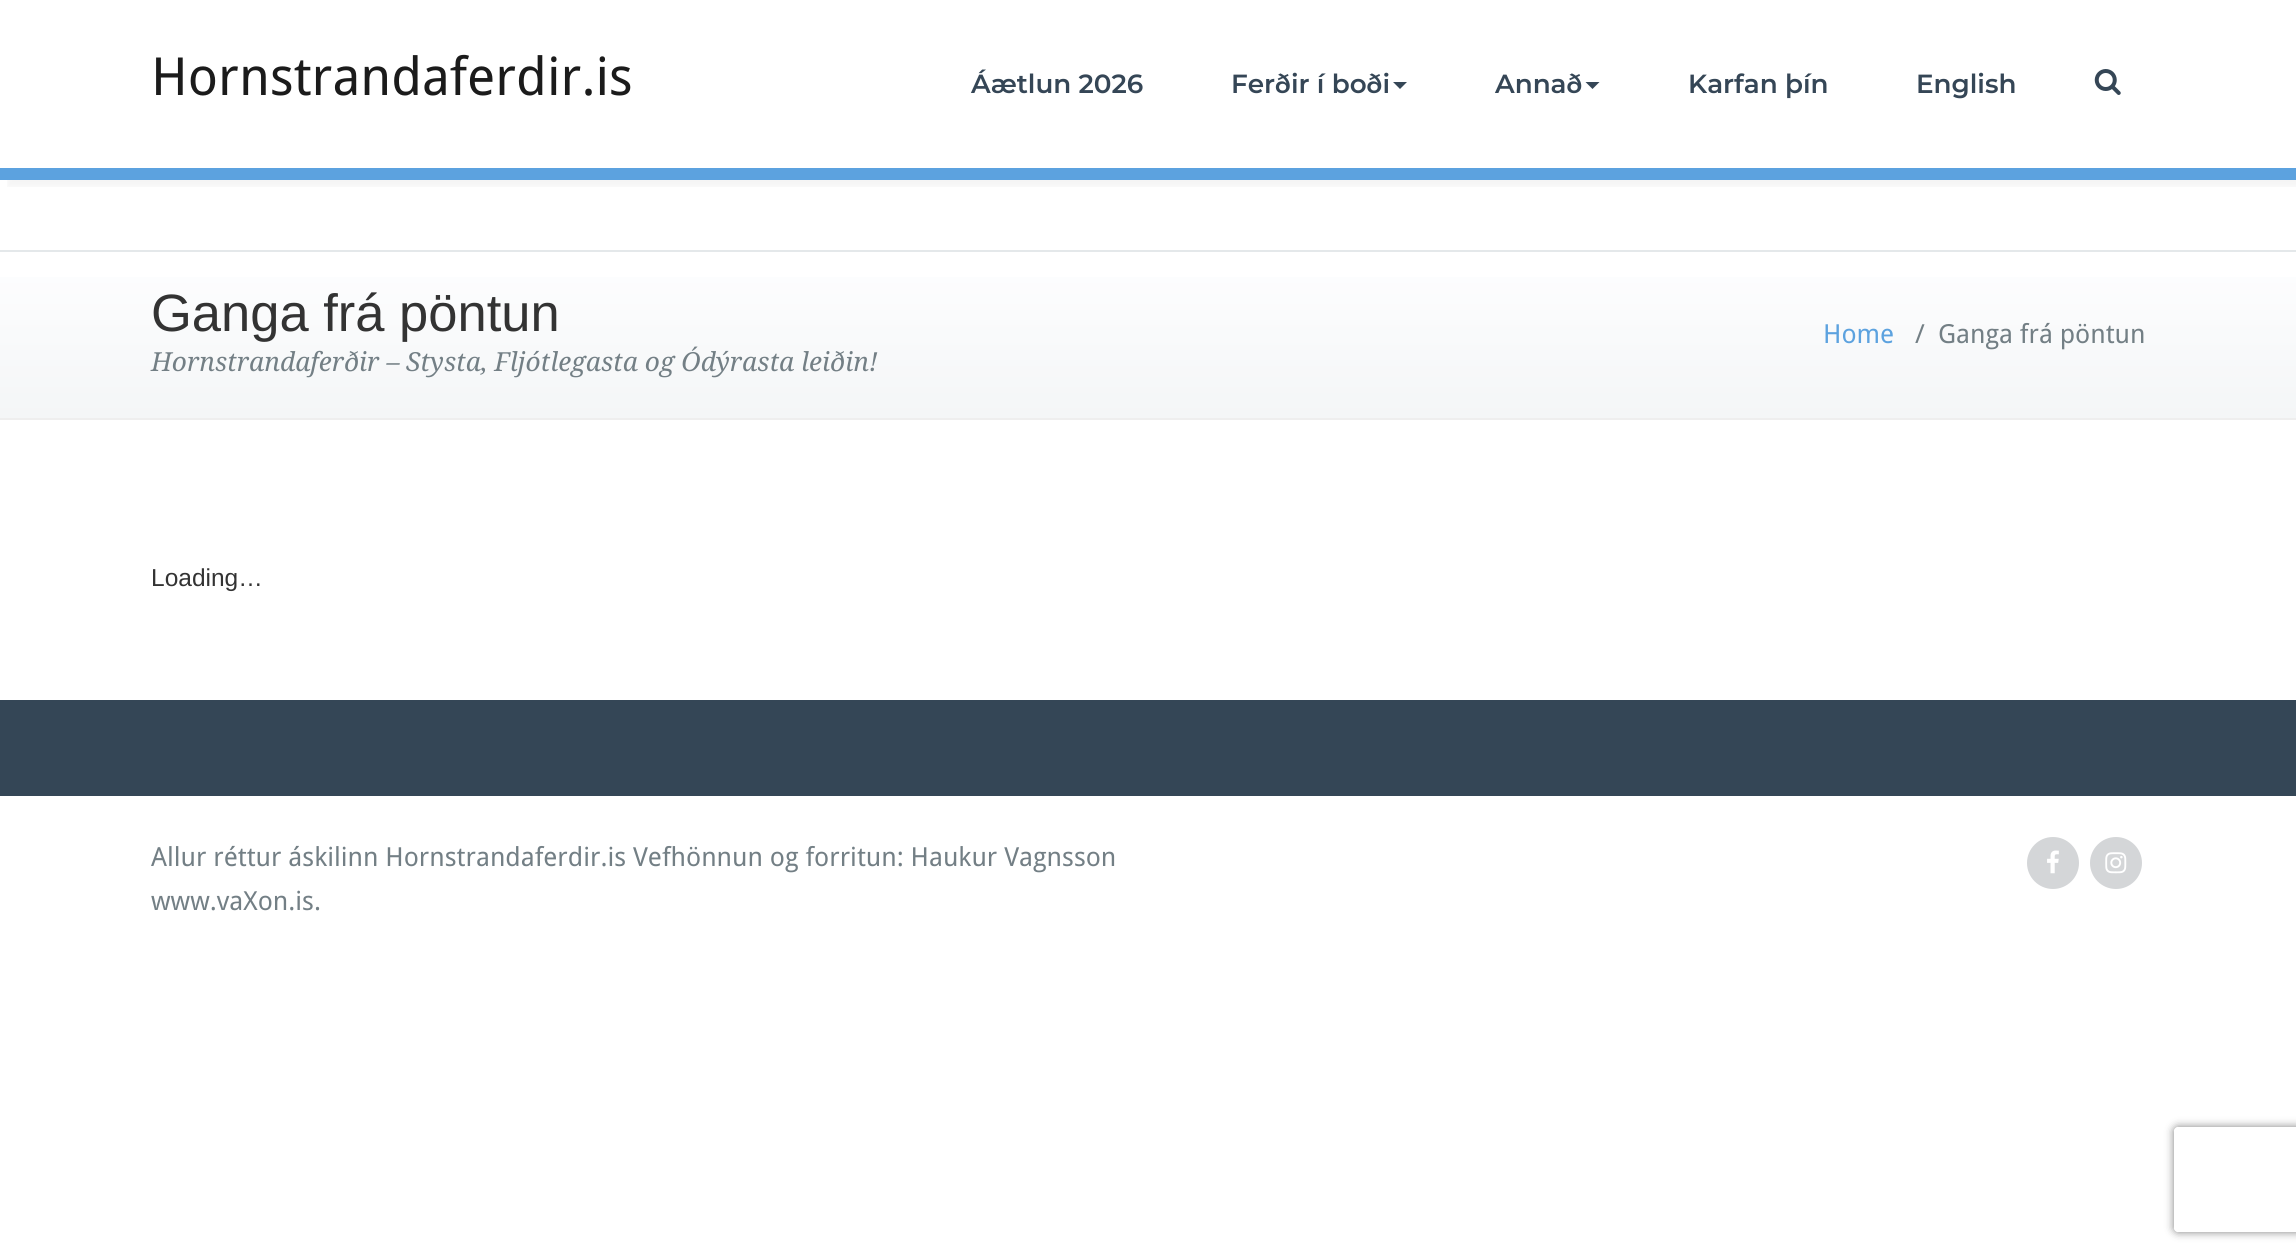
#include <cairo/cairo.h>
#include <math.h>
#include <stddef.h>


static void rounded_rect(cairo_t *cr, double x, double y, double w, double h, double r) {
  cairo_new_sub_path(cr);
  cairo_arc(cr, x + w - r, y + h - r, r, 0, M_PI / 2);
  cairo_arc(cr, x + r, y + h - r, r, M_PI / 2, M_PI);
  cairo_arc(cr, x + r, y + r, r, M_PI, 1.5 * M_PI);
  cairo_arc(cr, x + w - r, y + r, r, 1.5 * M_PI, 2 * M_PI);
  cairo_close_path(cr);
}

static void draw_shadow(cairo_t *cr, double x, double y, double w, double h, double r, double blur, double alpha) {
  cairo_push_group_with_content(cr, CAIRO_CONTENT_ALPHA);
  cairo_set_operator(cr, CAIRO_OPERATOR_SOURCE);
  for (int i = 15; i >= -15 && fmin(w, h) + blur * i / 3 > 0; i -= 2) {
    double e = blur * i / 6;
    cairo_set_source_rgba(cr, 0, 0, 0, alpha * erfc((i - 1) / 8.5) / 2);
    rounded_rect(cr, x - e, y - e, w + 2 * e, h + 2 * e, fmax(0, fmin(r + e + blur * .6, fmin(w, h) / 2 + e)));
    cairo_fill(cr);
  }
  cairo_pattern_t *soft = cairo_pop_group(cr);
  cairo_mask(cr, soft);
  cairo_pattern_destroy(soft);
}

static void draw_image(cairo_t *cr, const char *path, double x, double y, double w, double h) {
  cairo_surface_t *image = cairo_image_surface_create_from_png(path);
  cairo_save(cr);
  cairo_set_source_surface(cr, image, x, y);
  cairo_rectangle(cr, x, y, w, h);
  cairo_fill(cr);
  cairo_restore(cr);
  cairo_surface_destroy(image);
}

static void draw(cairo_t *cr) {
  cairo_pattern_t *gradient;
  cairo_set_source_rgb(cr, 1, 1, 1);
  cairo_paint(cr);
  cairo_save(cr);
  cairo_rectangle(cr, 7, 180, 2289, 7);
  cairo_clip(cr);
  cairo_set_source_rgb(cr, 0, 0, 0);
  draw_shadow(cr, 7, 7, 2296, 180, 0, 2.5, 0.04);
  cairo_restore(cr);
  cairo_set_source_rgb(cr, 92 / 255.0, 162 / 255.0, 223 / 255.0);
  cairo_rectangle(cr, 0, 168, 2296, 12);
  cairo_fill(cr);
  cairo_set_source_rgb(cr, 53 / 255.0, 70 / 255.0, 86 / 255.0);
  cairo_new_path(cr);
  cairo_move_to(cr, 1393, 82);
  cairo_line_to(cr, 1407, 82);
  cairo_line_to(cr, 1400, 89);
  cairo_close_path(cr);
  cairo_fill(cr);
  cairo_new_path(cr);
  cairo_move_to(cr, 1585.5, 82);
  cairo_line_to(cr, 1599.5, 82);
  cairo_line_to(cr, 1592.5, 89);
  cairo_close_path(cr);
  cairo_fill(cr);
  draw_image(cr, "images/1.png", 2094, 69, 27, 26);
  gradient = cairo_pattern_create_linear(1148, 252, 1148, 418);
  cairo_pattern_add_color_stop_rgba(gradient, 0, 254 / 255.0, 254 / 255.0, 1, 1);
  cairo_pattern_add_color_stop_rgba(gradient, 1, 244 / 255.0, 246 / 255.0, 247 / 255.0, 1);
  cairo_set_source(cr, gradient);
  cairo_pattern_destroy(gradient);
  cairo_rectangle(cr, 0, 277, 2296, 141);
  cairo_fill(cr);
  cairo_set_source_rgb(cr, 228 / 255.0, 232 / 255.0, 234 / 255.0);
  cairo_rectangle(cr, 0, 250, 2296, 2);
  cairo_fill(cr);
  cairo_set_source_rgb(cr, 238 / 255.0, 238 / 255.0, 238 / 255.0);
  cairo_rectangle(cr, 0, 418, 2296, 2);
  cairo_fill(cr);
  cairo_set_source_rgb(cr, 52 / 255.0, 70 / 255.0, 86 / 255.0);
  cairo_rectangle(cr, 0, 700, 2296, 96);
  cairo_fill(cr);
  cairo_set_source_rgb(cr, 212 / 255.0, 214 / 255.0, 216 / 255.0);
  cairo_arc(cr, 2053, 863, 26, 0, 2 * M_PI);
  cairo_fill(cr);
  draw_image(cr, "images/2.png", 2047, 850, 12, 24);
  cairo_arc(cr, 2116, 863, 26, 0, 2 * M_PI);
  cairo_fill(cr);
  draw_image(cr, "images/3.png", 2105, 852, 22, 22);
  cairo_save(cr);
  cairo_set_fill_rule(cr, CAIRO_FILL_RULE_EVEN_ODD);
  cairo_new_path(cr);
  cairo_move_to(cr, 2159, 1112);
  cairo_line_to(cr, 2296, 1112);
  cairo_line_to(cr, 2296, 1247);
  cairo_line_to(cr, 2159, 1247);
  cairo_close_path(cr);
  cairo_move_to(cr, 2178, 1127);
  cairo_line_to(cr, 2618, 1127);
  cairo_curve_to(cr, 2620, 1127, 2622, 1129, 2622, 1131);
  cairo_line_to(cr, 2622, 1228);
  cairo_curve_to(cr, 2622, 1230, 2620, 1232, 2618, 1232);
  cairo_line_to(cr, 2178, 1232);
  cairo_curve_to(cr, 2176, 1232, 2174, 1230, 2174, 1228);
  cairo_line_to(cr, 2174, 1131);
  cairo_curve_to(cr, 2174, 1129, 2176, 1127, 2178, 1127);
  cairo_close_path(cr);
  cairo_clip(cr);
  cairo_set_source_rgb(cr, 128 / 255.0, 128 / 255.0, 128 / 255.0);
  draw_shadow(cr, 2174, 1127, 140, 105, 4, 4.5, 1);
  cairo_restore(cr);
  cairo_select_font_face(cr, "Droid Sans", CAIRO_FONT_SLANT_NORMAL, CAIRO_FONT_WEIGHT_NORMAL);
  cairo_set_font_size(cr, 52.5);
  cairo_set_source_rgb(cr, 27 / 255.0, 27 / 255.0, 27 / 255.0);
  cairo_move_to(cr, 151, 95);
  cairo_show_text(cr, "Hornstrandaferdir.is");
  cairo_select_font_face(cr, "Montserrat SemiBold", CAIRO_FONT_SLANT_NORMAL, CAIRO_FONT_WEIGHT_NORMAL);
  cairo_set_font_size(cr, 26.25);
  cairo_set_source_rgb(cr, 53 / 255.0, 70 / 255.0, 86 / 255.0);
  cairo_move_to(cr, 971, 93);
  cairo_show_text(cr, "Áætlun 2026");
  cairo_move_to(cr, 1231, 93);
  cairo_show_text(cr, "Ferðir í boði");
  cairo_move_to(cr, 1495, 93);
  cairo_show_text(cr, "Annað");
  cairo_move_to(cr, 1688, 93);
  cairo_show_text(cr, "Karfan þín");
  cairo_move_to(cr, 1916, 93);
  cairo_show_text(cr, "English");
  cairo_select_font_face(cr, "Liberation Sans", CAIRO_FONT_SLANT_NORMAL, CAIRO_FONT_WEIGHT_NORMAL);
  cairo_set_font_size(cr, 52.5);
  cairo_set_source_rgb(cr, 51 / 255.0, 51 / 255.0, 51 / 255.0);
  cairo_move_to(cr, 151, 331);
  cairo_show_text(cr, "Ganga frá pöntun");
  cairo_select_font_face(cr, "Droid Serif", CAIRO_FONT_SLANT_ITALIC, CAIRO_FONT_WEIGHT_NORMAL);
  cairo_set_font_size(cr, 26.25);
  cairo_set_source_rgb(cr, 115 / 255.0, 127 / 255.0, 133 / 255.0);
  cairo_move_to(cr, 151, 371);
  cairo_show_text(cr, "Hornstrandaferðir – Stysta, Fljótlegasta og Ódýrasta leiðin!");
  cairo_select_font_face(cr, "Droid Sans", CAIRO_FONT_SLANT_NORMAL, CAIRO_FONT_WEIGHT_NORMAL);
  cairo_set_source_rgb(cr, 92 / 255.0, 162 / 255.0, 223 / 255.0);
  cairo_move_to(cr, 1823, 343);
  cairo_show_text(cr, "Home");
  cairo_set_source_rgb(cr, 115 / 255.0, 127 / 255.0, 133 / 255.0);
  cairo_move_to(cr, 1915, 343);
  cairo_show_text(cr, "/");
  cairo_move_to(cr, 1938, 343);
  cairo_show_text(cr, "Ganga frá pöntun");
  cairo_select_font_face(cr, "Liberation Sans", CAIRO_FONT_SLANT_NORMAL, CAIRO_FONT_WEIGHT_NORMAL);
  cairo_set_font_size(cr, 24.5);
  cairo_set_source_rgb(cr, 51 / 255.0, 51 / 255.0, 51 / 255.0);
  cairo_move_to(cr, 151, 586);
  cairo_show_text(cr, "Loading…");
  cairo_select_font_face(cr, "Droid Sans", CAIRO_FONT_SLANT_NORMAL, CAIRO_FONT_WEIGHT_NORMAL);
  cairo_set_font_size(cr, 26.25);
  cairo_set_source_rgb(cr, 115 / 255.0, 127 / 255.0, 133 / 255.0);
  cairo_move_to(cr, 151, 866);
  cairo_show_text(cr, "Allur réttur áskilinn Hornstrandaferdir.is Vefhönnun og forritun: Haukur Vagnsson");
  cairo_move_to(cr, 151, 910);
  cairo_show_text(cr, "www.vaXon.is.");
}

int main(void) {
  cairo_surface_t *surface = cairo_image_surface_create(CAIRO_FORMAT_RGB24, 2296, 1255);
  cairo_t *cr = cairo_create(surface);
  cairo_font_options_t *options = cairo_font_options_create();
  cairo_font_options_set_hint_metrics(options, CAIRO_HINT_METRICS_OFF);
  cairo_font_options_set_hint_style(options, CAIRO_HINT_STYLE_NONE);
  cairo_set_font_options(cr, options);
  cairo_set_miter_limit(cr, 4);
  draw(cr);
  cairo_surface_write_to_png(surface, "out.png");
  cairo_font_options_destroy(options);
  cairo_destroy(cr);
  cairo_surface_destroy(surface);
  return 0;
}
